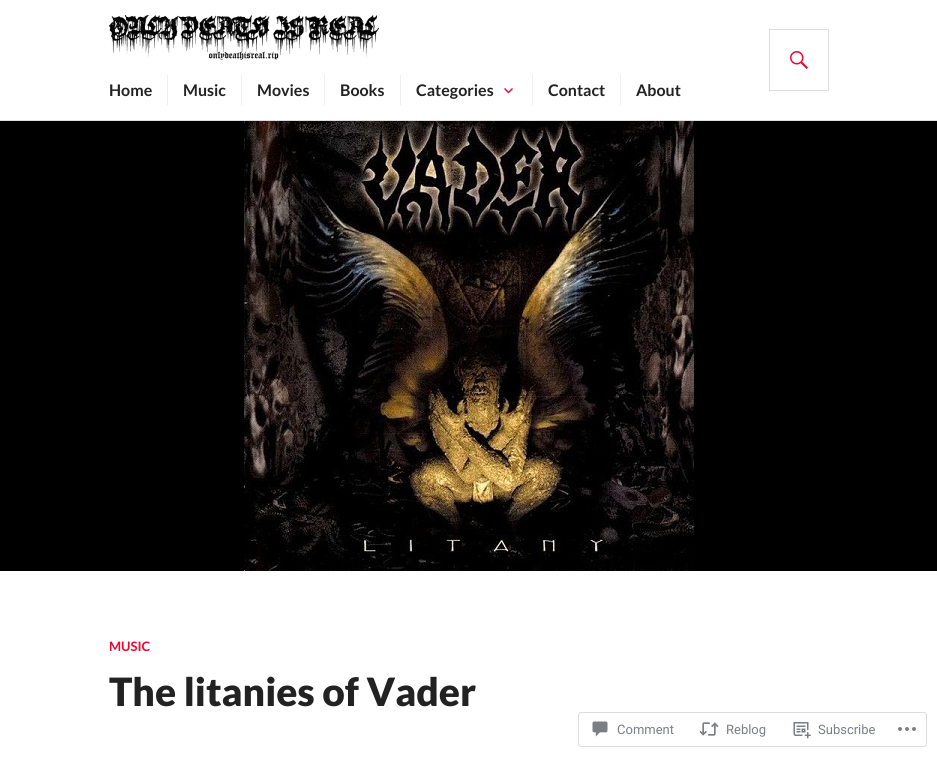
#include <cairo/cairo.h>
#include <math.h>
#include <stddef.h>


static void rounded_rect(cairo_t *cr, double x, double y, double w, double h, double r) {
  cairo_new_sub_path(cr);
  cairo_arc(cr, x + w - r, y + h - r, r, 0, M_PI / 2);
  cairo_arc(cr, x + r, y + h - r, r, M_PI / 2, M_PI);
  cairo_arc(cr, x + r, y + r, r, M_PI, 1.5 * M_PI);
  cairo_arc(cr, x + w - r, y + r, r, 1.5 * M_PI, 2 * M_PI);
  cairo_close_path(cr);
}

static void draw_image(cairo_t *cr, const char *path, double x, double y, double w, double h) {
  cairo_surface_t *image = cairo_image_surface_create_from_png(path);
  cairo_save(cr);
  cairo_set_source_surface(cr, image, x, y);
  cairo_rectangle(cr, x, y, w, h);
  cairo_fill(cr);
  cairo_restore(cr);
  cairo_surface_destroy(image);
}

static void draw(cairo_t *cr) {
  cairo_set_source_rgb(cr, 1, 1, 1);
  cairo_paint(cr);
  cairo_set_source_rgb(cr, 221 / 255.0, 221 / 255.0, 221 / 255.0);
  cairo_rectangle(cr, 0, 120, 937, 1);
  cairo_fill(cr);
  draw_image(cr, "images/1.png", 109, 15, 270, 45);
  cairo_rectangle(cr, 769.5, 29.5, 59, 61);
  cairo_set_line_width(cr, 1);
  cairo_stroke(cr);
  draw_image(cr, "images/2.png", 790, 51, 18, 18);
  cairo_set_source_rgb(cr, 239 / 255.0, 239 / 255.0, 239 / 255.0);
  cairo_rectangle(cr, 167, 75, 1, 30);
  cairo_fill(cr);
  cairo_rectangle(cr, 241, 75, 1, 30);
  cairo_fill(cr);
  cairo_rectangle(cr, 324, 75, 1, 30);
  cairo_fill(cr);
  cairo_rectangle(cr, 400, 75, 1, 30);
  cairo_fill(cr);
  draw_image(cr, "images/3.png", 504, 88, 9, 6);
  cairo_rectangle(cr, 532, 75, 1, 30);
  cairo_fill(cr);
  cairo_rectangle(cr, 620, 75, 1, 30);
  cairo_fill(cr);
  cairo_set_source_rgb(cr, 0, 0, 0);
  cairo_rectangle(cr, 0, 121, 937, 450);
  cairo_fill(cr);
  draw_image(cr, "images/4.png", 244, 121, 450, 450);
  rounded_rect(cr, 578.5, 712.5, 348, 34, 2.5);
  cairo_set_source_rgb(cr, 221 / 255.0, 221 / 255.0, 223 / 255.0);
  cairo_stroke(cr);
  draw_image(cr, "images/5.png", 592, 721, 16, 16);
  draw_image(cr, "images/6.png", 699, 722, 20, 14);
  draw_image(cr, "images/7.png", 793, 722, 18, 17);
  draw_image(cr, "images/8.png", 898, 727, 18, 4);
  cairo_select_font_face(cr, "Lato", CAIRO_FONT_SLANT_NORMAL, CAIRO_FONT_WEIGHT_BOLD);
  cairo_set_font_size(cr, 16);
  cairo_set_source_rgb(cr, 34 / 255.0, 34 / 255.0, 34 / 255.0);
  cairo_move_to(cr, 109, 96);
  cairo_show_text(cr, "Home");
  cairo_move_to(cr, 183, 96);
  cairo_show_text(cr, "Music");
  cairo_move_to(cr, 257, 96);
  cairo_show_text(cr, "Movies");
  cairo_move_to(cr, 340, 96);
  cairo_show_text(cr, "Books");
  cairo_move_to(cr, 416, 96);
  cairo_show_text(cr, "Categories");
  cairo_move_to(cr, 548, 96);
  cairo_show_text(cr, "Contact");
  cairo_move_to(cr, 636, 96);
  cairo_show_text(cr, "About");
  cairo_set_font_size(cr, 13);
  cairo_set_source_rgb(cr, 232 / 255.0, 8 / 255.0, 50 / 255.0);
  cairo_move_to(cr, 109, 651);
  cairo_show_text(cr, "MUSIC");
  cairo_select_font_face(cr, "Lato Black", CAIRO_FONT_SLANT_NORMAL, CAIRO_FONT_WEIGHT_NORMAL);
  cairo_set_font_size(cr, 39);
  cairo_set_source_rgb(cr, 34 / 255.0, 34 / 255.0, 34 / 255.0);
  cairo_move_to(cr, 109, 706);
  cairo_show_text(cr, "The litanies of Vader");
  cairo_select_font_face(cr, "Roboto", CAIRO_FONT_SLANT_NORMAL, CAIRO_FONT_WEIGHT_NORMAL);
  cairo_set_font_size(cr, 13);
  cairo_set_source_rgb(cr, 123 / 255.0, 127 / 255.0, 133 / 255.0);
  cairo_move_to(cr, 617, 734);
  cairo_show_text(cr, "Comment");
  cairo_move_to(cr, 726, 734);
  cairo_show_text(cr, "Reblog");
  cairo_move_to(cr, 818, 734);
  cairo_show_text(cr, "Subscribe");
}

int main(void) {
  cairo_surface_t *surface = cairo_image_surface_create(CAIRO_FORMAT_RGB24, 937, 757);
  cairo_t *cr = cairo_create(surface);
  cairo_font_options_t *options = cairo_font_options_create();
  cairo_font_options_set_hint_metrics(options, CAIRO_HINT_METRICS_OFF);
  cairo_font_options_set_hint_style(options, CAIRO_HINT_STYLE_NONE);
  cairo_set_font_options(cr, options);
  cairo_set_miter_limit(cr, 4);
  draw(cr);
  cairo_surface_write_to_png(surface, "out.png");
  cairo_font_options_destroy(options);
  cairo_destroy(cr);
  cairo_surface_destroy(surface);
  return 0;
}
